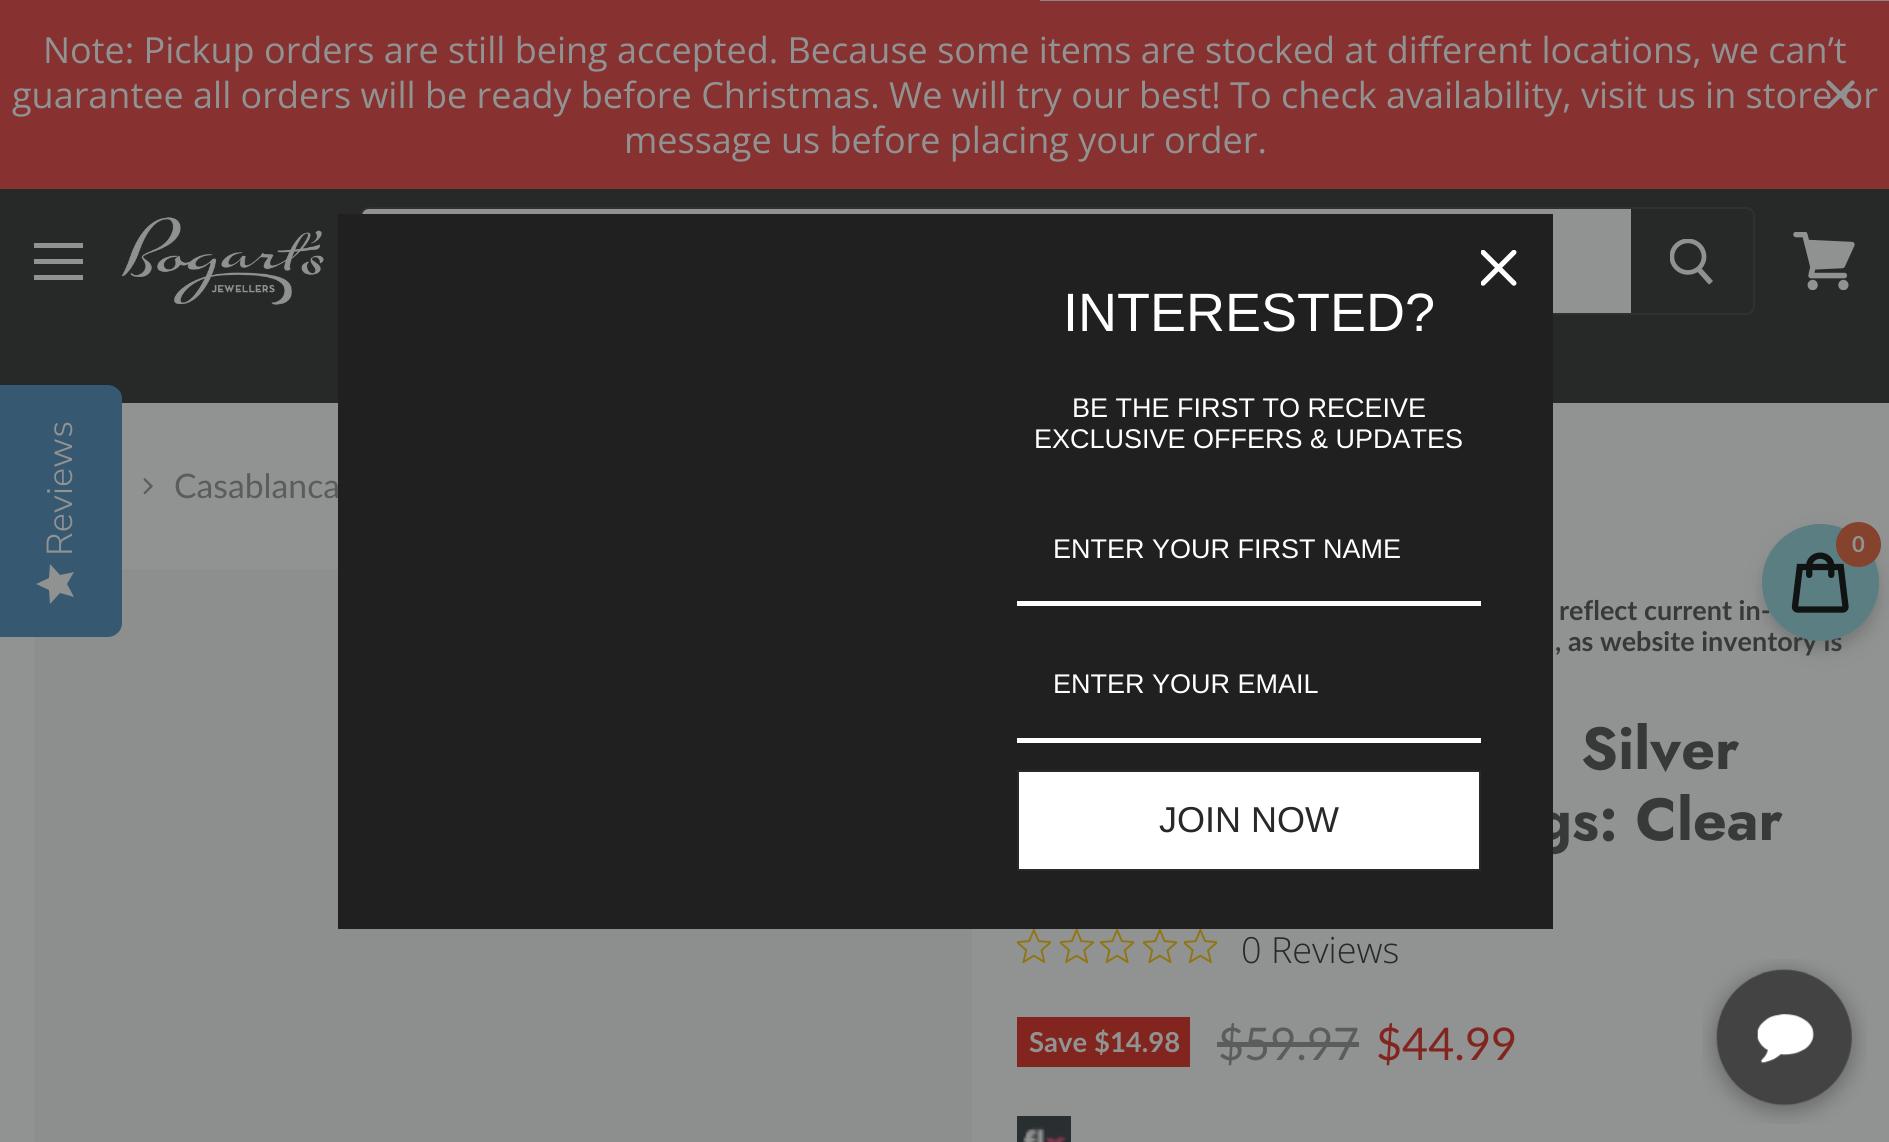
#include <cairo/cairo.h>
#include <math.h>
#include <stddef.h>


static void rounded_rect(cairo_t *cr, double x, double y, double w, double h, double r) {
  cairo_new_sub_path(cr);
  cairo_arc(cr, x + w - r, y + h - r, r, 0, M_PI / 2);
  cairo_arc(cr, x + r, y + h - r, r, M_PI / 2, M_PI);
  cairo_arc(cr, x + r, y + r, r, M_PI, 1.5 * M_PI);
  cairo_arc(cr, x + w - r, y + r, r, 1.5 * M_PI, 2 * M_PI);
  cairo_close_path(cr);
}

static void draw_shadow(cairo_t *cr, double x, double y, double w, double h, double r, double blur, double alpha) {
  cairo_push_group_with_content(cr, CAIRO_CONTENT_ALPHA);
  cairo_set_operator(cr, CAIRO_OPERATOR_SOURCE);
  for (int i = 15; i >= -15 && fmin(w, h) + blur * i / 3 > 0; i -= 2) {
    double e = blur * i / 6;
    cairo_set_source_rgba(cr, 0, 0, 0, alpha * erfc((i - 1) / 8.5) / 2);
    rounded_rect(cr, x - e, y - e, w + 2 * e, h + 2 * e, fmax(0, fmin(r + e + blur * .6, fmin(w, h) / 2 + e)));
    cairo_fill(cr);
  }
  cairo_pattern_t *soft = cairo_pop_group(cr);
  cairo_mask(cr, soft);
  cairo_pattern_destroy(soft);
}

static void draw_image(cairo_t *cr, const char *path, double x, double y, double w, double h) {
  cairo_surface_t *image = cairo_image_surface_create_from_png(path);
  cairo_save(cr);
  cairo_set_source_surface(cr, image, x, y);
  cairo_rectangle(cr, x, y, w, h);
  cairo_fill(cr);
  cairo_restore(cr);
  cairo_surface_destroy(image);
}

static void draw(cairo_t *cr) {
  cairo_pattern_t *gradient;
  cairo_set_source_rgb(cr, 145 / 255.0, 146 / 255.0, 146 / 255.0);
  cairo_paint(cr);
  cairo_set_source_rgb(cr, 135 / 255.0, 49 / 255.0, 49 / 255.0);
  cairo_rectangle(cr, 0, 0, 1889, 189);
  cairo_fill(cr);
  cairo_set_source_rgb(cr, 133 / 255.0, 135 / 255.0, 136 / 255.0);
  cairo_rectangle(cr, 1040, 0, 849, 1);
  cairo_fill(cr);
  cairo_set_source_rgb(cr, 39 / 255.0, 40 / 255.0, 40 / 255.0);
  cairo_rectangle(cr, 0, 189, 1889, 214);
  cairo_fill(cr);
  cairo_set_source_rgb(cr, 145 / 255.0, 146 / 255.0, 146 / 255.0);
  cairo_rectangle(cr, 34, 243, 49, 5);
  cairo_fill(cr);
  cairo_rectangle(cr, 34, 259, 49, 5);
  cairo_fill(cr);
  cairo_rectangle(cr, 34, 275, 49, 5);
  cairo_fill(cr);
  draw_image(cr, "images/2.png", 121, 217, 203, 88);
  rounded_rect(cr, 361, 208, 1393, 106, 8);
  cairo_set_source_rgba(cr, 81 / 255.0, 82 / 255.0, 82 / 255.0, 0.2);
  cairo_stroke(cr);
  cairo_set_source_rgb(cr, 145 / 255.0, 146 / 255.0, 146 / 255.0);
  cairo_new_path(cr);
  cairo_move_to(cr, 369, 209);
  cairo_line_to(cr, 1631, 209);
  cairo_line_to(cr, 1631, 313);
  cairo_line_to(cr, 369, 313);
  cairo_curve_to(cr, 365, 313, 362, 310, 362, 306);
  cairo_line_to(cr, 362, 216);
  cairo_curve_to(cr, 362, 212, 365, 209, 369, 209);
  cairo_close_path(cr);
  cairo_fill(cr);
  draw_image(cr, "images/3.png", 1670, 239, 43, 46);
  draw_image(cr, "images/4.png", 1793, 232, 62, 58);
  cairo_set_source_rgb(cr, 141 / 255.0, 142 / 255.0, 142 / 255.0);
  cairo_rectangle(cr, 34, 569, 938, 573);
  cairo_fill(cr);
  cairo_set_source_rgb(cr, 54 / 255.0, 88 / 255.0, 112 / 255.0);
  cairo_new_path(cr);
  cairo_move_to(cr, 0, 637);
  cairo_line_to(cr, 0, 385);
  cairo_line_to(cr, 108, 385);
  cairo_curve_to(cr, 115, 385, 122, 391, 122, 398);
  cairo_line_to(cr, 122, 623);
  cairo_curve_to(cr, 122, 631, 115, 637, 108, 637);
  cairo_close_path(cr);
  cairo_fill(cr);
  gradient = cairo_pattern_create_linear(36, 604, 36, 564);
  cairo_pattern_add_color_stop_rgba(gradient, 1, 144 / 255.0, 145 / 255.0, 145 / 255.0, 1);
  cairo_pattern_add_color_stop_rgba(gradient, 1, 134 / 255.0, 135 / 255.0, 135 / 255.0, 1);
  cairo_set_source(cr, gradient);
  cairo_pattern_destroy(gradient);
  cairo_new_path(cr);
  cairo_move_to(cr, 67, 584);
  cairo_line_to(cr, 74, 572);
  cairo_line_to(cr, 60, 575);
  cairo_line_to(cr, 50, 564);
  cairo_line_to(cr, 49, 578);
  cairo_line_to(cr, 36, 584);
  cairo_line_to(cr, 49, 590);
  cairo_line_to(cr, 50, 604);
  cairo_line_to(cr, 60, 593);
  cairo_line_to(cr, 74, 597);
  cairo_close_path(cr);
  cairo_fill(cr);
  draw_image(cr, "images/6.png", 143, 478, 10, 17);
  draw_image(cr, "images/7.png", 1017, 929, 34, 34);
  draw_image(cr, "images/8.png", 1060, 929, 34, 34);
  draw_image(cr, "images/9.png", 1100, 929, 34, 34);
  draw_image(cr, "images/7.png", 1143, 929, 34, 34);
  draw_image(cr, "images/10.png", 1184, 929, 33, 34);
  cairo_set_source_rgb(cr, 131 / 255.0, 37 / 255.0, 31 / 255.0);
  cairo_rectangle(cr, 1017, 1017, 173, 50);
  cairo_fill(cr);
  cairo_set_source_rgb(cr, 91 / 255.0, 92 / 255.0, 92 / 255.0);
  cairo_rectangle(cr, 1217, 1042, 142, 5);
  cairo_fill(cr);
  draw_image(cr, "images/11.png", 1017, 1116, 54, 26);
  cairo_set_source_rgb(cr, 17 / 255.0, 18 / 255.0, 18 / 255.0);
  draw_shadow(cr, 1762, 533, 117, 117, 58.5, 4.5, 0.08);
  draw_shadow(cr, 1764, 533, 117, 117, 58.5, 11, 0.12);
  draw_image(cr, "images/13.png", 1702, 959, 165, 165);
  cairo_select_font_face(cr, "Open Sans", CAIRO_FONT_SLANT_NORMAL, CAIRO_FONT_WEIGHT_NORMAL);
  cairo_set_font_size(cr, 36);
  cairo_set_source_rgb(cr, 145 / 255.0, 146 / 255.0, 146 / 255.0);
  cairo_move_to(cr, 43, 63);
  cairo_show_text(cr, "Note: Pickup orders are still being accepted. Because some items are stocked at different locations, we can’t");
  cairo_move_to(cr, 12, 108);
  cairo_show_text(cr, "guarantee all orders will be ready before Christmas. We will try our best! To check availability, visit us in store or");
  cairo_move_to(cr, 624, 153);
  cairo_show_text(cr, "message us before placing your order.");
  draw_image(cr, "images/1.png", 1826, 80, 29, 29);
  cairo_select_font_face(cr, "Nunito Sans Light", CAIRO_FONT_SLANT_NORMAL, CAIRO_FONT_WEIGHT_NORMAL);
  cairo_save(cr);
  cairo_translate(cr, 72, 556);
  cairo_rotate(cr, -90 * M_PI / 180);
  cairo_move_to(cr, 0, 0);
  cairo_show_text(cr, "Reviews");
  cairo_restore(cr);
  cairo_select_font_face(cr, "Lato", CAIRO_FONT_SLANT_NORMAL, CAIRO_FONT_WEIGHT_NORMAL);
  cairo_set_font_size(cr, 33.75);
  cairo_set_source_rgb(cr, 91 / 255.0, 92 / 255.0, 92 / 255.0);
  cairo_move_to(cr, 174, 498);
  cairo_show_text(cr, "Casablanca");
  cairo_select_font_face(cr, "Lato", CAIRO_FONT_SLANT_NORMAL, CAIRO_FONT_WEIGHT_BOLD);
  cairo_set_font_size(cr, 27);
  cairo_set_source_rgb(cr, 56 / 255.0, 57 / 255.0, 57 / 255.0);
  cairo_move_to(cr, 1559, 620);
  cairo_show_text(cr, "reflect current in-");
  cairo_move_to(cr, 1555, 651);
  cairo_show_text(cr, ", as website inventory is");
  cairo_select_font_face(cr, "Jost", CAIRO_FONT_SLANT_NORMAL, CAIRO_FONT_WEIGHT_BOLD);
  cairo_set_font_size(cr, 59);
  cairo_move_to(cr, 1581, 769);
  cairo_show_text(cr, "Silver");
  cairo_move_to(cr, 1536, 840);
  cairo_show_text(cr, "gs: Clear");
  cairo_set_source_rgb(cr, 32 / 255.0, 32 / 255.0, 32 / 255.0);
  cairo_rectangle(cr, 338, 214, 1215, 715);
  cairo_fill(cr);
  draw_image(cr, "images/5.png", 1481, 250, 36, 36);
  cairo_set_source_rgb(cr, 1, 1, 1);
  cairo_rectangle(cr, 1018, 771, 462, 99);
  cairo_fill_preserve(cr);
  cairo_set_source_rgb(cr, 41 / 255.0, 41 / 255.0, 41 / 255.0);
  cairo_stroke(cr);
  cairo_select_font_face(cr, "Liberation Sans", CAIRO_FONT_SLANT_NORMAL, CAIRO_FONT_WEIGHT_NORMAL);
  cairo_set_font_size(cr, 36);
  cairo_set_source_rgb(cr, 39 / 255.0, 40 / 255.0, 40 / 255.0);
  cairo_move_to(cr, 1159, 832);
  cairo_show_text(cr, "JOIN NOW");
  cairo_set_font_size(cr, 27);
  cairo_set_source_rgb(cr, 1, 1, 1);
  cairo_move_to(cr, 1053, 693);
  cairo_show_text(cr, "ENTER YOUR EMAIL");
  cairo_rectangle(cr, 1017, 738, 464, 5);
  cairo_fill(cr);
  cairo_move_to(cr, 1053, 558);
  cairo_show_text(cr, "ENTER YOUR FIRST NAME");
  cairo_rectangle(cr, 1017, 601, 464, 5);
  cairo_fill(cr);
  cairo_move_to(cr, 1034, 448);
  cairo_show_text(cr, "EXCLUSIVE OFFERS & UPDATES");
  cairo_move_to(cr, 1072, 417);
  cairo_show_text(cr, "BE THE FIRST TO RECEIVE");
  cairo_set_font_size(cr, 54);
  cairo_move_to(cr, 1063, 331);
  cairo_show_text(cr, "INTERESTED?");
  cairo_select_font_face(cr, "Open Sans Light", CAIRO_FONT_SLANT_NORMAL, CAIRO_FONT_WEIGHT_NORMAL);
  cairo_set_font_size(cr, 36);
  cairo_set_source_rgb(cr, 39 / 255.0, 40 / 255.0, 40 / 255.0);
  cairo_move_to(cr, 1241, 963);
  cairo_show_text(cr, "0 Reviews");
  cairo_select_font_face(cr, "Lato", CAIRO_FONT_SLANT_NORMAL, CAIRO_FONT_WEIGHT_BOLD);
  cairo_set_font_size(cr, 27.5);
  cairo_set_source_rgb(cr, 145 / 255.0, 146 / 255.0, 146 / 255.0);
  cairo_move_to(cr, 1029, 1052);
  cairo_show_text(cr, "Save $14.98");
  cairo_select_font_face(cr, "Lato", CAIRO_FONT_SLANT_NORMAL, CAIRO_FONT_WEIGHT_NORMAL);
  cairo_set_font_size(cr, 45);
  cairo_set_source_rgb(cr, 91 / 255.0, 92 / 255.0, 92 / 255.0);
  cairo_move_to(cr, 1218, 1060);
  cairo_show_text(cr, "$59.97");
  cairo_set_source_rgb(cr, 131 / 255.0, 37 / 255.0, 31 / 255.0);
  cairo_move_to(cr, 1376, 1060);
  cairo_show_text(cr, "$44.99");
  cairo_set_source_rgb(cr, 90 / 255.0, 126 / 255.0, 130 / 255.0);
  cairo_new_path(cr);
  cairo_arc(cr, 1820.5, 582.5, 58.5, 0, 2 * M_PI);
  cairo_fill(cr);
  draw_image(cr, "images/12.png", 1791, 552, 58, 61);
  cairo_set_source_rgb(cr, 133 / 255.0, 66 / 255.0, 44 / 255.0);
  cairo_arc(cr, 1858.5, 544.5, 22.5, 0, 2 * M_PI);
  cairo_fill(cr);
  cairo_select_font_face(cr, "Lato", CAIRO_FONT_SLANT_NORMAL, CAIRO_FONT_WEIGHT_BOLD);
  cairo_set_font_size(cr, 22);
  cairo_set_source_rgb(cr, 145 / 255.0, 146 / 255.0, 146 / 255.0);
  cairo_move_to(cr, 1852, 552);
  cairo_show_text(cr, "0");
}

int main(void) {
  cairo_surface_t *surface = cairo_image_surface_create(CAIRO_FORMAT_RGB24, 1889, 1142);
  cairo_t *cr = cairo_create(surface);
  cairo_font_options_t *options = cairo_font_options_create();
  cairo_font_options_set_hint_metrics(options, CAIRO_HINT_METRICS_OFF);
  cairo_font_options_set_hint_style(options, CAIRO_HINT_STYLE_NONE);
  cairo_set_font_options(cr, options);
  cairo_set_miter_limit(cr, 4);
  draw(cr);
  cairo_surface_write_to_png(surface, "out.png");
  cairo_font_options_destroy(options);
  cairo_destroy(cr);
  cairo_surface_destroy(surface);
  return 0;
}
